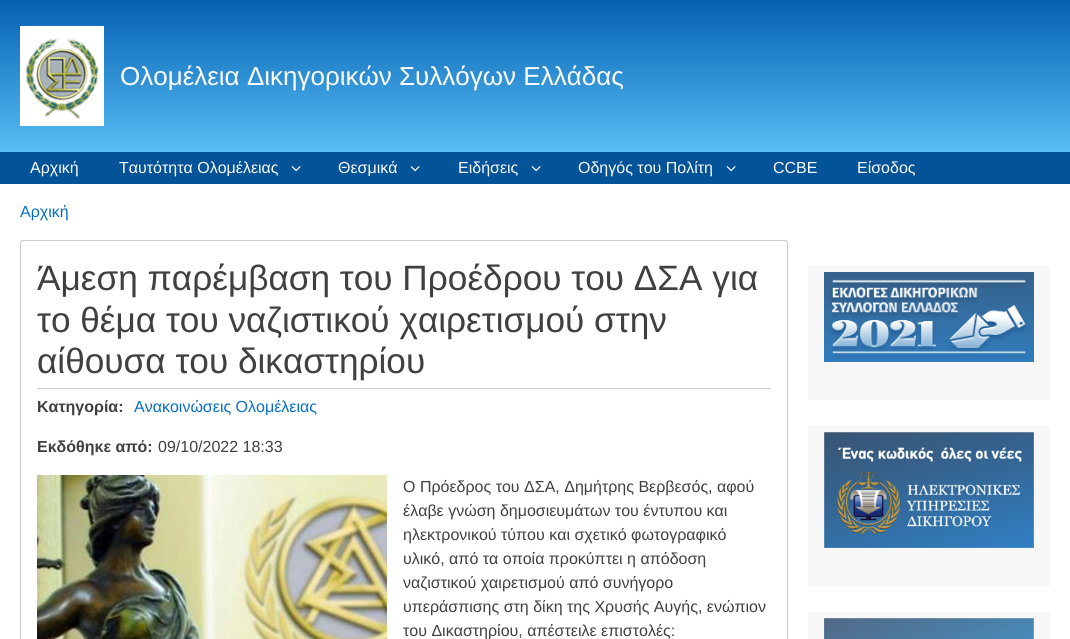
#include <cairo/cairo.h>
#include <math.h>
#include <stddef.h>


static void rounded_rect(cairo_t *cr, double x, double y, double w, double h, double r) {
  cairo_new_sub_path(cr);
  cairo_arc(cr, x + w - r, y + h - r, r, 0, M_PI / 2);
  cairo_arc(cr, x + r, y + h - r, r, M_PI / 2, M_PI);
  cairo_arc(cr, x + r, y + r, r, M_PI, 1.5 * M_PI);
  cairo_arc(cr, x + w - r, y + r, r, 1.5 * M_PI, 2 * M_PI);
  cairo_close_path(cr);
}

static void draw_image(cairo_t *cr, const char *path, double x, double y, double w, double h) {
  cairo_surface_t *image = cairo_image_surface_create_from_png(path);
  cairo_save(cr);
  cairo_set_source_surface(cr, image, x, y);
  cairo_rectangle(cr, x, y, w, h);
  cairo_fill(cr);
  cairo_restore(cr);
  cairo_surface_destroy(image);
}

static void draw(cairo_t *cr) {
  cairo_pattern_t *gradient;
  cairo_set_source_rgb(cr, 1, 1, 1);
  cairo_paint(cr);
  gradient = cairo_pattern_create_linear(535, 0, 535, 152);
  cairo_pattern_add_color_stop_rgba(gradient, 0, 4 / 255.0, 97 / 255.0, 178 / 255.0, 1);
  cairo_pattern_add_color_stop_rgba(gradient, 1, 88 / 255.0, 189 / 255.0, 245 / 255.0, 1);
  cairo_set_source(cr, gradient);
  cairo_pattern_destroy(gradient);
  cairo_rectangle(cr, 0, 0, 1070, 152);
  cairo_fill(cr);
  draw_image(cr, "images/1.png", 20, 26, 84, 100);
  cairo_set_source_rgb(cr, 3 / 255.0, 83 / 255.0, 153 / 255.0);
  cairo_rectangle(cr, 0, 152, 1070, 32);
  cairo_fill(cr);
  draw_image(cr, "images/2.png", 291, 166, 10, 6);
  draw_image(cr, "images/2.png", 410, 166, 10, 6);
  draw_image(cr, "images/2.png", 531, 166, 10, 6);
  draw_image(cr, "images/2.png", 726, 166, 10, 6);
  rounded_rect(cr, 20.5, 240.5, 767, 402, 2.5);
  cairo_set_source_rgb(cr, 204 / 255.0, 204 / 255.0, 204 / 255.0);
  cairo_set_line_width(cr, 1);
  cairo_stroke(cr);
  cairo_rectangle(cr, 37, 388, 734, 1);
  cairo_fill(cr);
  draw_image(cr, "images/3.png", 37, 475, 350, 164);
  cairo_set_source_rgb(cr, 247 / 255.0, 247 / 255.0, 247 / 255.0);
  cairo_rectangle(cr, 808, 266, 242, 134);
  cairo_fill(cr);
  draw_image(cr, "images/4.png", 824, 272, 210, 90);
  cairo_rectangle(cr, 808, 426, 242, 160);
  cairo_fill(cr);
  draw_image(cr, "images/5.png", 824, 432, 210, 116);
  cairo_rectangle(cr, 808, 612, 242, 27);
  cairo_fill(cr);
  draw_image(cr, "images/6.png", 824, 618, 210, 21);
  cairo_select_font_face(cr, "Liberation Sans", CAIRO_FONT_SLANT_NORMAL, CAIRO_FONT_WEIGHT_NORMAL);
  cairo_set_font_size(cr, 26);
  cairo_set_source_rgb(cr, 252 / 255.0, 252 / 255.0, 252 / 255.0);
  cairo_move_to(cr, 120, 85);
  cairo_show_text(cr, "Ολομέλεια Δικηγορικών Συλλόγων Ελλάδας");
  cairo_set_font_size(cr, 16);
  cairo_move_to(cr, 30, 173);
  cairo_show_text(cr, "Αρχική");
  cairo_move_to(cr, 119, 173);
  cairo_show_text(cr, "Ταυτότητα Ολομέλειας");
  cairo_move_to(cr, 338, 173);
  cairo_show_text(cr, "Θεσμικά");
  cairo_move_to(cr, 458, 173);
  cairo_show_text(cr, "Ειδήσεις");
  cairo_move_to(cr, 578, 173);
  cairo_show_text(cr, "Οδηγός του Πολίτη");
  cairo_move_to(cr, 773, 173);
  cairo_show_text(cr, "CCBE");
  cairo_move_to(cr, 857, 173);
  cairo_show_text(cr, "Είσοδος");
  cairo_set_source_rgb(cr, 5 / 255.0, 111 / 255.0, 203 / 255.0);
  cairo_move_to(cr, 20, 217);
  cairo_show_text(cr, "Αρχική");
  cairo_set_font_size(cr, 35.2);
  cairo_set_source_rgb(cr, 64 / 255.0, 64 / 255.0, 64 / 255.0);
  cairo_move_to(cr, 37, 290);
  cairo_show_text(cr, "Άμεση παρέμβαση του Προέδρου του ΔΣΑ για");
  cairo_move_to(cr, 37, 332);
  cairo_show_text(cr, "το θέμα του ναζιστικού χαιρετισμού στην");
  cairo_move_to(cr, 37, 373);
  cairo_show_text(cr, "αίθουσα του δικαστηρίου");
  cairo_select_font_face(cr, "Liberation Sans", CAIRO_FONT_SLANT_NORMAL, CAIRO_FONT_WEIGHT_BOLD);
  cairo_set_font_size(cr, 16);
  cairo_move_to(cr, 37, 412);
  cairo_show_text(cr, "Κατηγορία:");
  cairo_select_font_face(cr, "Liberation Sans", CAIRO_FONT_SLANT_NORMAL, CAIRO_FONT_WEIGHT_NORMAL);
  cairo_set_source_rgb(cr, 5 / 255.0, 111 / 255.0, 203 / 255.0);
  cairo_move_to(cr, 134, 412);
  cairo_show_text(cr, "Ανακοινώσεις Ολομέλειας");
  cairo_select_font_face(cr, "Liberation Sans", CAIRO_FONT_SLANT_NORMAL, CAIRO_FONT_WEIGHT_BOLD);
  cairo_set_source_rgb(cr, 64 / 255.0, 64 / 255.0, 64 / 255.0);
  cairo_move_to(cr, 37, 452);
  cairo_show_text(cr, "Εκδόθηκε από:");
  cairo_select_font_face(cr, "Liberation Sans", CAIRO_FONT_SLANT_NORMAL, CAIRO_FONT_WEIGHT_NORMAL);
  cairo_move_to(cr, 158, 452);
  cairo_show_text(cr, "09/10/2022 18:33");
  cairo_move_to(cr, 403, 492);
  cairo_show_text(cr, "Ο Πρόεδρος του ΔΣΑ, Δημήτρης Βερβεσός, αφού");
  cairo_move_to(cr, 403, 516);
  cairo_show_text(cr, "έλαβε γνώση δημοσιευμάτων του έντυπου και");
  cairo_move_to(cr, 403, 540);
  cairo_show_text(cr, "ηλεκτρονικού τύπου και σχετικό φωτογραφικό");
  cairo_move_to(cr, 403, 564);
  cairo_show_text(cr, "υλικό, από τα οποία προκύπτει η απόδοση");
  cairo_move_to(cr, 403, 588);
  cairo_show_text(cr, "ναζιστικού χαιρετισμού από συνήγορο");
  cairo_move_to(cr, 403, 612);
  cairo_show_text(cr, "υπεράσπισης στη δίκη της Χρυσής Αυγής, ενώπιον");
  cairo_move_to(cr, 403, 636);
  cairo_show_text(cr, "του Δικαστηρίου, απέστειλε επιστολές:");
}

int main(void) {
  cairo_surface_t *surface = cairo_image_surface_create(CAIRO_FORMAT_RGB24, 1070, 639);
  cairo_t *cr = cairo_create(surface);
  cairo_font_options_t *options = cairo_font_options_create();
  cairo_font_options_set_hint_metrics(options, CAIRO_HINT_METRICS_OFF);
  cairo_font_options_set_hint_style(options, CAIRO_HINT_STYLE_NONE);
  cairo_set_font_options(cr, options);
  cairo_set_miter_limit(cr, 4);
  draw(cr);
  cairo_surface_write_to_png(surface, "out.png");
  cairo_font_options_destroy(options);
  cairo_destroy(cr);
  cairo_surface_destroy(surface);
  return 0;
}
